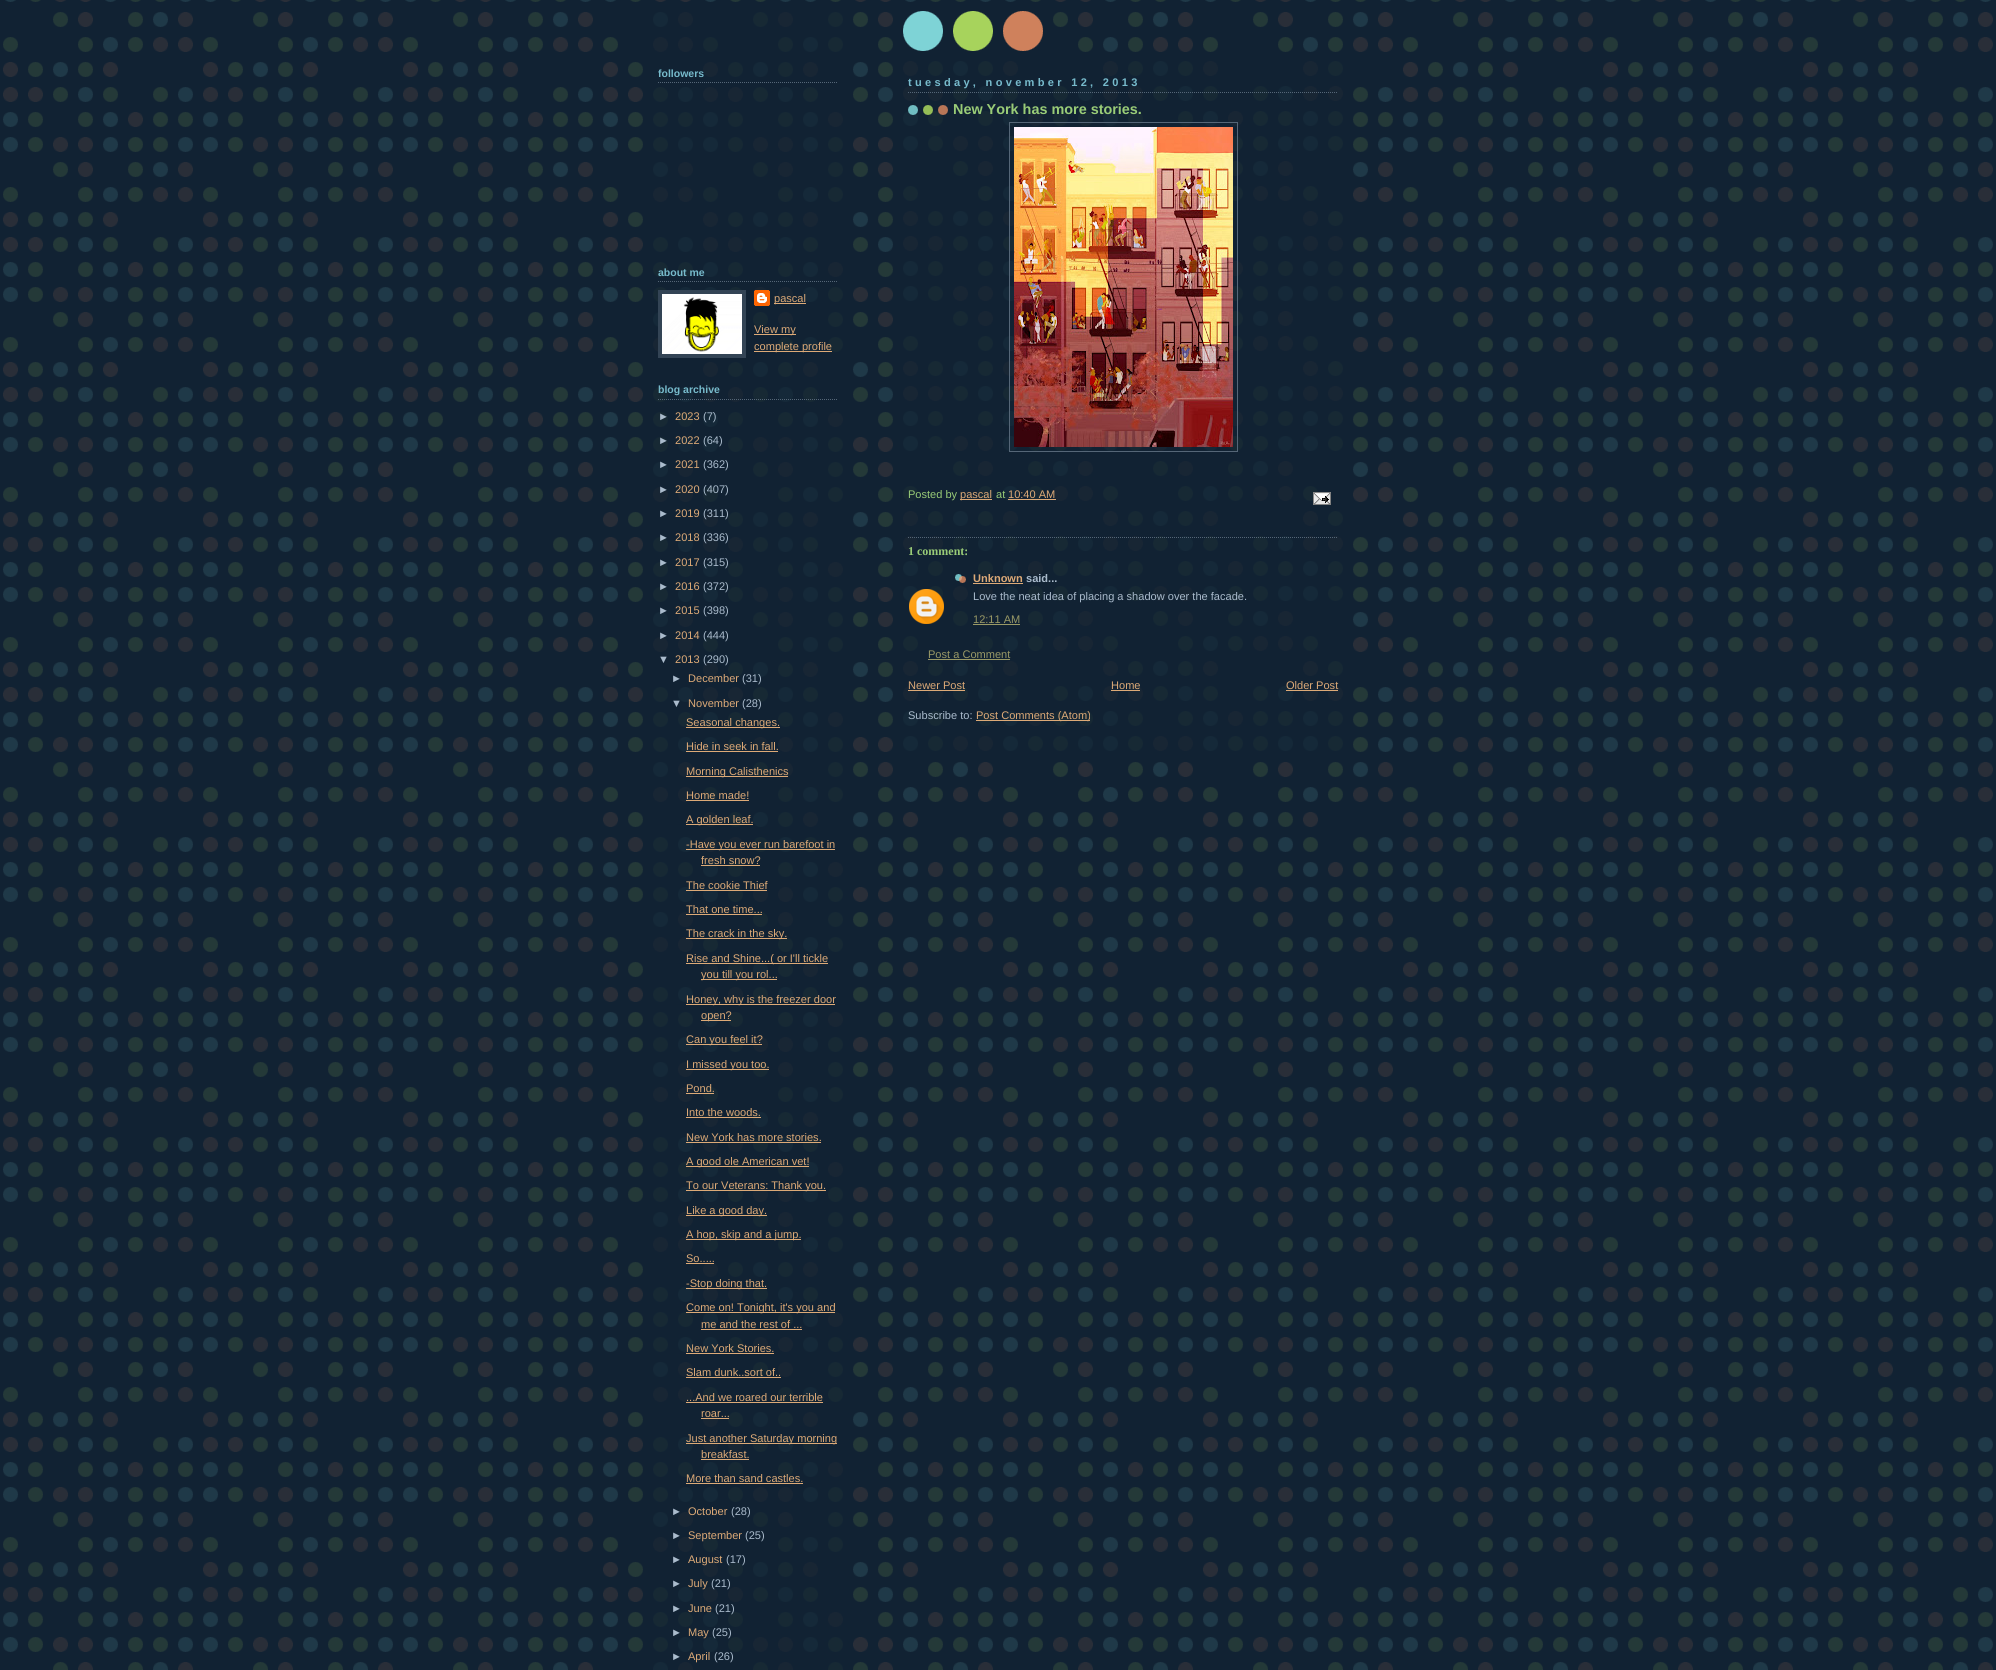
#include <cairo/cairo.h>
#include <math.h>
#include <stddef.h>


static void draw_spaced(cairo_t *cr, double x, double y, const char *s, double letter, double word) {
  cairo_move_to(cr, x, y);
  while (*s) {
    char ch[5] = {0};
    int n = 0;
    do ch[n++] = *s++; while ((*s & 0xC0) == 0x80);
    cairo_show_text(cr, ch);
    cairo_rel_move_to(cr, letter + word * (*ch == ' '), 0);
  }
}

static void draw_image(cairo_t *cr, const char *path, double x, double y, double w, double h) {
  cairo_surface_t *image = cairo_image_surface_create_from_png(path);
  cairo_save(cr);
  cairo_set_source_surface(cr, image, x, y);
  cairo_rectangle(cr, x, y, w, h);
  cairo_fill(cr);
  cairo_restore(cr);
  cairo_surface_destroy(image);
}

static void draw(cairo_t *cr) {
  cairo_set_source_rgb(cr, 17 / 255.0, 34 / 255.0, 51 / 255.0);
  cairo_paint(cr);
  draw_image(cr, "images/1.png", 3, 0, 1990, 1670);
  draw_image(cr, "images/2.png", 903, 11, 140, 41);
  draw_image(cr, "images/3.png", 653, 12, 190, 1658);
  cairo_new_path(cr);
  cairo_move_to(cr, 658, 82.5);
  cairo_line_to(cr, 838, 82.5);
  cairo_set_source_rgb(cr, 85 / 255.0, 102 / 255.0, 119 / 255.0);
  cairo_set_line_width(cr, 1);
  cairo_set_dash(cr, (double[]){1, 1}, 2, 0);
  cairo_stroke(cr);
  cairo_new_path(cr);
  cairo_move_to(cr, 658, 281.5);
  cairo_line_to(cr, 838, 281.5);
  cairo_stroke(cr);
  cairo_rectangle(cr, 660, 292, 84, 64);
  cairo_set_source_rgb(cr, 51 / 255.0, 68 / 255.0, 85 / 255.0);
  cairo_set_line_width(cr, 4);
  cairo_set_dash(cr, NULL, 0, 0);
  cairo_stroke(cr);
  draw_image(cr, "images/4.png", 662, 294, 80, 60);
  draw_image(cr, "images/5.png", 754, 290, 16, 16);
  cairo_set_source_rgb(cr, 221 / 255.0, 170 / 255.0, 119 / 255.0);
  cairo_rectangle(cr, 774, 303, 32, 1);
  cairo_fill(cr);
  cairo_rectangle(cr, 754, 334, 42, 1);
  cairo_fill(cr);
  cairo_rectangle(cr, 754, 351, 78, 1);
  cairo_fill(cr);
  cairo_new_path(cr);
  cairo_move_to(cr, 658, 399.5);
  cairo_line_to(cr, 838, 399.5);
  cairo_set_source_rgb(cr, 85 / 255.0, 102 / 255.0, 119 / 255.0);
  cairo_set_line_width(cr, 1);
  cairo_set_dash(cr, (double[]){1, 1}, 2, 0);
  cairo_stroke(cr);
  cairo_set_source_rgb(cr, 221 / 255.0, 170 / 255.0, 119 / 255.0);
  cairo_rectangle(cr, 686, 727, 94, 1);
  cairo_fill(cr);
  cairo_rectangle(cr, 686, 751, 92, 1);
  cairo_fill(cr);
  cairo_rectangle(cr, 686, 776, 102, 1);
  cairo_fill(cr);
  cairo_rectangle(cr, 686, 800, 63, 1);
  cairo_fill(cr);
  cairo_rectangle(cr, 686, 824, 67, 1);
  cairo_fill(cr);
  cairo_rectangle(cr, 686, 849, 149, 1);
  cairo_fill(cr);
  cairo_rectangle(cr, 701, 865, 59, 1);
  cairo_fill(cr);
  cairo_rectangle(cr, 686, 890, 81, 1);
  cairo_fill(cr);
  cairo_rectangle(cr, 686, 914, 76, 1);
  cairo_fill(cr);
  cairo_rectangle(cr, 686, 938, 101, 1);
  cairo_fill(cr);
  cairo_rectangle(cr, 686, 963, 142, 1);
  cairo_fill(cr);
  cairo_rectangle(cr, 701, 979, 76, 1);
  cairo_fill(cr);
  cairo_rectangle(cr, 686, 1004, 149, 1);
  cairo_fill(cr);
  cairo_rectangle(cr, 701, 1020, 30, 1);
  cairo_fill(cr);
  cairo_rectangle(cr, 686, 1044, 76, 1);
  cairo_fill(cr);
  cairo_rectangle(cr, 686, 1069, 83, 1);
  cairo_fill(cr);
  cairo_rectangle(cr, 686, 1093, 28, 1);
  cairo_fill(cr);
  cairo_rectangle(cr, 686, 1117, 75, 1);
  cairo_fill(cr);
  cairo_rectangle(cr, 686, 1142, 135, 1);
  cairo_fill(cr);
  cairo_rectangle(cr, 686, 1166, 123, 1);
  cairo_fill(cr);
  cairo_rectangle(cr, 686, 1190, 140, 1);
  cairo_fill(cr);
  cairo_rectangle(cr, 686, 1215, 81, 1);
  cairo_fill(cr);
  cairo_rectangle(cr, 686, 1239, 115, 1);
  cairo_fill(cr);
  cairo_rectangle(cr, 686, 1263, 28, 1);
  cairo_fill(cr);
  cairo_rectangle(cr, 686, 1288, 81, 1);
  cairo_fill(cr);
  cairo_rectangle(cr, 686, 1312, 149, 1);
  cairo_fill(cr);
  cairo_rectangle(cr, 701, 1329, 101, 1);
  cairo_fill(cr);
  cairo_rectangle(cr, 686, 1353, 88, 1);
  cairo_fill(cr);
  cairo_rectangle(cr, 686, 1377, 95, 1);
  cairo_fill(cr);
  cairo_rectangle(cr, 686, 1402, 137, 1);
  cairo_fill(cr);
  cairo_rectangle(cr, 701, 1418, 28, 1);
  cairo_fill(cr);
  cairo_rectangle(cr, 686, 1443, 151, 1);
  cairo_fill(cr);
  cairo_rectangle(cr, 701, 1459, 48, 1);
  cairo_fill(cr);
  cairo_rectangle(cr, 686, 1483, 117, 1);
  cairo_fill(cr);
  draw_image(cr, "images/6.png", 903, 61, 440, 691);
  cairo_new_path(cr);
  cairo_move_to(cr, 908, 92.5);
  cairo_line_to(cr, 1338, 92.5);
  cairo_set_source_rgb(cr, 85 / 255.0, 102 / 255.0, 119 / 255.0);
  cairo_stroke(cr);
  draw_image(cr, "images/7.png", 908, 105, 40, 10);
  cairo_rectangle(cr, 1009.5, 122.5, 228, 329);
  cairo_set_dash(cr, NULL, 0, 0);
  cairo_stroke(cr);
  draw_image(cr, "images/8.png", 1014, 127, 219, 320);
  cairo_set_source_rgb(cr, 221 / 255.0, 170 / 255.0, 119 / 255.0);
  cairo_rectangle(cr, 960, 499, 32, 1);
  cairo_fill(cr);
  cairo_rectangle(cr, 1008, 499, 48, 1);
  cairo_fill(cr);
  draw_image(cr, "images/9.png", 1313, 492, 18, 13);
  cairo_new_path(cr);
  cairo_move_to(cr, 908, 537.5);
  cairo_line_to(cr, 1338, 537.5);
  cairo_set_source_rgb(cr, 85 / 255.0, 102 / 255.0, 119 / 255.0);
  cairo_set_dash(cr, (double[]){1, 1}, 2, 0);
  cairo_stroke(cr);
  draw_image(cr, "images/10.png", 955, 574, 11, 9);
  cairo_set_source_rgb(cr, 221 / 255.0, 170 / 255.0, 119 / 255.0);
  cairo_rectangle(cr, 973, 583, 50, 1);
  cairo_fill(cr);
  draw_image(cr, "images/11.png", 909, 589, 35, 35);
  cairo_set_source_rgb(cr, 153 / 255.0, 153 / 255.0, 102 / 255.0);
  cairo_rectangle(cr, 973, 624, 47, 1);
  cairo_fill(cr);
  cairo_rectangle(cr, 928, 659, 82, 1);
  cairo_fill(cr);
  cairo_set_source_rgb(cr, 221 / 255.0, 170 / 255.0, 119 / 255.0);
  cairo_rectangle(cr, 908, 690, 57, 1);
  cairo_fill(cr);
  cairo_rectangle(cr, 1111, 690, 29, 1);
  cairo_fill(cr);
  cairo_rectangle(cr, 1286, 690, 52, 1);
  cairo_fill(cr);
  cairo_rectangle(cr, 976, 720, 114, 1);
  cairo_fill(cr);
  cairo_select_font_face(cr, "Liberation Sans", CAIRO_FONT_SLANT_NORMAL, CAIRO_FONT_WEIGHT_BOLD);
  cairo_set_font_size(cr, 10.5);
  cairo_set_source_rgb(cr, 119 / 255.0, 187 / 255.0, 204 / 255.0);
  cairo_move_to(cr, 658, 77);
  cairo_show_text(cr, "followers");
  cairo_move_to(cr, 658, 276);
  cairo_show_text(cr, "about me");
  cairo_select_font_face(cr, "Liberation Sans", CAIRO_FONT_SLANT_NORMAL, CAIRO_FONT_WEIGHT_NORMAL);
  cairo_set_font_size(cr, 11.05);
  cairo_set_source_rgb(cr, 221 / 255.0, 170 / 255.0, 119 / 255.0);
  cairo_move_to(cr, 774, 302);
  cairo_show_text(cr, "pascal");
  cairo_move_to(cr, 754, 333);
  cairo_show_text(cr, "View my");
  cairo_move_to(cr, 754, 350);
  cairo_show_text(cr, "complete profile");
  cairo_select_font_face(cr, "Liberation Sans", CAIRO_FONT_SLANT_NORMAL, CAIRO_FONT_WEIGHT_BOLD);
  cairo_set_font_size(cr, 10.5);
  cairo_set_source_rgb(cr, 119 / 255.0, 187 / 255.0, 204 / 255.0);
  cairo_move_to(cr, 658, 393);
  cairo_show_text(cr, "blog archive");
  cairo_select_font_face(cr, "Liberation Sans", CAIRO_FONT_SLANT_NORMAL, CAIRO_FONT_WEIGHT_NORMAL);
  cairo_set_font_size(cr, 11.05);
  cairo_set_source_rgb(cr, 170 / 255.0, 187 / 255.0, 204 / 255.0);
  cairo_move_to(cr, 658, 420);
  cairo_show_text(cr, "►");
  cairo_set_source_rgb(cr, 221 / 255.0, 170 / 255.0, 119 / 255.0);
  cairo_move_to(cr, 675, 420);
  cairo_show_text(cr, "2023");
  cairo_set_source_rgb(cr, 170 / 255.0, 187 / 255.0, 204 / 255.0);
  cairo_move_to(cr, 703, 420);
  cairo_show_text(cr, "(7)");
  cairo_move_to(cr, 658, 444);
  cairo_show_text(cr, "►");
  cairo_set_source_rgb(cr, 221 / 255.0, 170 / 255.0, 119 / 255.0);
  cairo_move_to(cr, 675, 444);
  cairo_show_text(cr, "2022");
  cairo_set_source_rgb(cr, 170 / 255.0, 187 / 255.0, 204 / 255.0);
  cairo_move_to(cr, 703, 444);
  cairo_show_text(cr, "(64)");
  cairo_move_to(cr, 658, 468);
  cairo_show_text(cr, "►");
  cairo_set_source_rgb(cr, 221 / 255.0, 170 / 255.0, 119 / 255.0);
  cairo_move_to(cr, 675, 468);
  cairo_show_text(cr, "2021");
  cairo_set_source_rgb(cr, 170 / 255.0, 187 / 255.0, 204 / 255.0);
  cairo_move_to(cr, 703, 468);
  cairo_show_text(cr, "(362)");
  cairo_move_to(cr, 658, 493);
  cairo_show_text(cr, "►");
  cairo_set_source_rgb(cr, 221 / 255.0, 170 / 255.0, 119 / 255.0);
  cairo_move_to(cr, 675, 493);
  cairo_show_text(cr, "2020");
  cairo_set_source_rgb(cr, 170 / 255.0, 187 / 255.0, 204 / 255.0);
  cairo_move_to(cr, 703, 493);
  cairo_show_text(cr, "(407)");
  cairo_move_to(cr, 658, 517);
  cairo_show_text(cr, "►");
  cairo_set_source_rgb(cr, 221 / 255.0, 170 / 255.0, 119 / 255.0);
  cairo_move_to(cr, 675, 517);
  cairo_show_text(cr, "2019");
  cairo_set_source_rgb(cr, 170 / 255.0, 187 / 255.0, 204 / 255.0);
  cairo_move_to(cr, 703, 517);
  cairo_show_text(cr, "(311)");
  cairo_move_to(cr, 658, 541);
  cairo_show_text(cr, "►");
  cairo_set_source_rgb(cr, 221 / 255.0, 170 / 255.0, 119 / 255.0);
  cairo_move_to(cr, 675, 541);
  cairo_show_text(cr, "2018");
  cairo_set_source_rgb(cr, 170 / 255.0, 187 / 255.0, 204 / 255.0);
  cairo_move_to(cr, 703, 541);
  cairo_show_text(cr, "(336)");
  cairo_move_to(cr, 658, 566);
  cairo_show_text(cr, "►");
  cairo_set_source_rgb(cr, 221 / 255.0, 170 / 255.0, 119 / 255.0);
  cairo_move_to(cr, 675, 566);
  cairo_show_text(cr, "2017");
  cairo_set_source_rgb(cr, 170 / 255.0, 187 / 255.0, 204 / 255.0);
  cairo_move_to(cr, 703, 566);
  cairo_show_text(cr, "(315)");
  cairo_move_to(cr, 658, 590);
  cairo_show_text(cr, "►");
  cairo_set_source_rgb(cr, 221 / 255.0, 170 / 255.0, 119 / 255.0);
  cairo_move_to(cr, 675, 590);
  cairo_show_text(cr, "2016");
  cairo_set_source_rgb(cr, 170 / 255.0, 187 / 255.0, 204 / 255.0);
  cairo_move_to(cr, 703, 590);
  cairo_show_text(cr, "(372)");
  cairo_move_to(cr, 658, 614);
  cairo_show_text(cr, "►");
  cairo_set_source_rgb(cr, 221 / 255.0, 170 / 255.0, 119 / 255.0);
  cairo_move_to(cr, 675, 614);
  cairo_show_text(cr, "2015");
  cairo_set_source_rgb(cr, 170 / 255.0, 187 / 255.0, 204 / 255.0);
  cairo_move_to(cr, 703, 614);
  cairo_show_text(cr, "(398)");
  cairo_move_to(cr, 658, 639);
  cairo_show_text(cr, "►");
  cairo_set_source_rgb(cr, 221 / 255.0, 170 / 255.0, 119 / 255.0);
  cairo_move_to(cr, 675, 639);
  cairo_show_text(cr, "2014");
  cairo_set_source_rgb(cr, 170 / 255.0, 187 / 255.0, 204 / 255.0);
  cairo_move_to(cr, 703, 639);
  cairo_show_text(cr, "(444)");
  cairo_move_to(cr, 658, 663);
  cairo_show_text(cr, "▼");
  cairo_set_source_rgb(cr, 221 / 255.0, 170 / 255.0, 119 / 255.0);
  cairo_move_to(cr, 675, 663);
  cairo_show_text(cr, "2013");
  cairo_set_source_rgb(cr, 170 / 255.0, 187 / 255.0, 204 / 255.0);
  cairo_move_to(cr, 703, 663);
  cairo_show_text(cr, "(290)");
  cairo_move_to(cr, 671, 682);
  cairo_show_text(cr, "►");
  cairo_set_source_rgb(cr, 221 / 255.0, 170 / 255.0, 119 / 255.0);
  cairo_move_to(cr, 688, 682);
  cairo_show_text(cr, "December");
  cairo_set_source_rgb(cr, 170 / 255.0, 187 / 255.0, 204 / 255.0);
  cairo_move_to(cr, 742, 682);
  cairo_show_text(cr, "(31)");
  cairo_move_to(cr, 671, 707);
  cairo_show_text(cr, "▼");
  cairo_set_source_rgb(cr, 221 / 255.0, 170 / 255.0, 119 / 255.0);
  cairo_move_to(cr, 688, 707);
  cairo_show_text(cr, "November");
  cairo_set_source_rgb(cr, 170 / 255.0, 187 / 255.0, 204 / 255.0);
  cairo_move_to(cr, 742, 707);
  cairo_show_text(cr, "(28)");
  cairo_set_source_rgb(cr, 221 / 255.0, 170 / 255.0, 119 / 255.0);
  cairo_move_to(cr, 686, 726);
  cairo_show_text(cr, "Seasonal changes.");
  cairo_move_to(cr, 686, 750);
  cairo_show_text(cr, "Hide in seek in fall.");
  cairo_move_to(cr, 686, 775);
  cairo_show_text(cr, "Morning Calisthenics");
  cairo_move_to(cr, 686, 799);
  cairo_show_text(cr, "Home made!");
  cairo_move_to(cr, 686, 823);
  cairo_show_text(cr, "A golden leaf.");
  cairo_move_to(cr, 686, 848);
  cairo_show_text(cr, "-Have you ever run barefoot in");
  cairo_move_to(cr, 701, 864);
  cairo_show_text(cr, "fresh snow?");
  cairo_move_to(cr, 686, 889);
  cairo_show_text(cr, "The cookie Thief");
  cairo_move_to(cr, 686, 913);
  cairo_show_text(cr, "That one time...");
  cairo_move_to(cr, 686, 937);
  cairo_show_text(cr, "The crack in the sky.");
  cairo_move_to(cr, 686, 962);
  cairo_show_text(cr, "Rise and Shine...( or I'll tickle");
  cairo_move_to(cr, 701, 978);
  cairo_show_text(cr, "you till you rol...");
  cairo_move_to(cr, 686, 1003);
  cairo_show_text(cr, "Honey, why is the freezer door");
  cairo_move_to(cr, 701, 1019);
  cairo_show_text(cr, "open?");
  cairo_move_to(cr, 686, 1043);
  cairo_show_text(cr, "Can you feel it?");
  cairo_move_to(cr, 686, 1068);
  cairo_show_text(cr, "I missed you too.");
  cairo_move_to(cr, 686, 1092);
  cairo_show_text(cr, "Pond.");
  cairo_move_to(cr, 686, 1116);
  cairo_show_text(cr, "Into the woods.");
  cairo_move_to(cr, 686, 1141);
  cairo_show_text(cr, "New York has more stories.");
  cairo_move_to(cr, 686, 1165);
  cairo_show_text(cr, "A good ole American vet!");
  cairo_move_to(cr, 686, 1189);
  cairo_show_text(cr, "To our Veterans: Thank you.");
  cairo_move_to(cr, 686, 1214);
  cairo_show_text(cr, "Like a good day.");
  cairo_move_to(cr, 686, 1238);
  cairo_show_text(cr, "A hop, skip and a jump.");
  cairo_move_to(cr, 686, 1262);
  cairo_show_text(cr, "So.....");
  cairo_move_to(cr, 686, 1287);
  cairo_show_text(cr, "-Stop doing that.");
  cairo_move_to(cr, 686, 1311);
  cairo_show_text(cr, "Come on! Tonight, it's you and");
  cairo_move_to(cr, 701, 1328);
  cairo_show_text(cr, "me and the rest of ...");
  cairo_move_to(cr, 686, 1352);
  cairo_show_text(cr, "New York Stories.");
  cairo_move_to(cr, 686, 1376);
  cairo_show_text(cr, "Slam dunk..sort of..");
  cairo_move_to(cr, 686, 1401);
  cairo_show_text(cr, "...And we roared our terrible");
  cairo_move_to(cr, 701, 1417);
  cairo_show_text(cr, "roar...");
  cairo_move_to(cr, 686, 1442);
  cairo_show_text(cr, "Just another Saturday morning");
  cairo_move_to(cr, 701, 1458);
  cairo_show_text(cr, "breakfast.");
  cairo_move_to(cr, 686, 1482);
  cairo_show_text(cr, "More than sand castles.");
  cairo_set_source_rgb(cr, 170 / 255.0, 187 / 255.0, 204 / 255.0);
  cairo_move_to(cr, 671, 1515);
  cairo_show_text(cr, "►");
  cairo_set_source_rgb(cr, 221 / 255.0, 170 / 255.0, 119 / 255.0);
  cairo_move_to(cr, 688, 1515);
  cairo_show_text(cr, "October");
  cairo_set_source_rgb(cr, 170 / 255.0, 187 / 255.0, 204 / 255.0);
  cairo_move_to(cr, 731, 1515);
  cairo_show_text(cr, "(28)");
  cairo_move_to(cr, 671, 1539);
  cairo_show_text(cr, "►");
  cairo_set_source_rgb(cr, 221 / 255.0, 170 / 255.0, 119 / 255.0);
  cairo_move_to(cr, 688, 1539);
  cairo_show_text(cr, "September");
  cairo_set_source_rgb(cr, 170 / 255.0, 187 / 255.0, 204 / 255.0);
  cairo_move_to(cr, 745, 1539);
  cairo_show_text(cr, "(25)");
  cairo_move_to(cr, 671, 1563);
  cairo_show_text(cr, "►");
  cairo_set_source_rgb(cr, 221 / 255.0, 170 / 255.0, 119 / 255.0);
  cairo_move_to(cr, 688, 1563);
  cairo_show_text(cr, "August");
  cairo_set_source_rgb(cr, 170 / 255.0, 187 / 255.0, 204 / 255.0);
  cairo_move_to(cr, 726, 1563);
  cairo_show_text(cr, "(17)");
  cairo_move_to(cr, 671, 1587);
  cairo_show_text(cr, "►");
  cairo_set_source_rgb(cr, 221 / 255.0, 170 / 255.0, 119 / 255.0);
  cairo_move_to(cr, 688, 1587);
  cairo_show_text(cr, "July");
  cairo_set_source_rgb(cr, 170 / 255.0, 187 / 255.0, 204 / 255.0);
  cairo_move_to(cr, 711, 1587);
  cairo_show_text(cr, "(21)");
  cairo_move_to(cr, 671, 1612);
  cairo_show_text(cr, "►");
  cairo_set_source_rgb(cr, 221 / 255.0, 170 / 255.0, 119 / 255.0);
  cairo_move_to(cr, 688, 1612);
  cairo_show_text(cr, "June");
  cairo_set_source_rgb(cr, 170 / 255.0, 187 / 255.0, 204 / 255.0);
  cairo_move_to(cr, 715, 1612);
  cairo_show_text(cr, "(21)");
  cairo_move_to(cr, 671, 1636);
  cairo_show_text(cr, "►");
  cairo_set_source_rgb(cr, 221 / 255.0, 170 / 255.0, 119 / 255.0);
  cairo_move_to(cr, 688, 1636);
  cairo_show_text(cr, "May");
  cairo_set_source_rgb(cr, 170 / 255.0, 187 / 255.0, 204 / 255.0);
  cairo_move_to(cr, 712, 1636);
  cairo_show_text(cr, "(25)");
  cairo_move_to(cr, 671, 1660);
  cairo_show_text(cr, "►");
  cairo_set_source_rgb(cr, 221 / 255.0, 170 / 255.0, 119 / 255.0);
  cairo_move_to(cr, 688, 1660);
  cairo_show_text(cr, "April");
  cairo_set_source_rgb(cr, 170 / 255.0, 187 / 255.0, 204 / 255.0);
  cairo_move_to(cr, 714, 1660);
  cairo_show_text(cr, "(26)");
  cairo_select_font_face(cr, "Liberation Sans", CAIRO_FONT_SLANT_NORMAL, CAIRO_FONT_WEIGHT_BOLD);
  cairo_set_source_rgb(cr, 119 / 255.0, 187 / 255.0, 204 / 255.0);
  draw_spaced(cr, 908, 86, "tuesday, november 12, 2013", 3.3, 0);
  cairo_set_font_size(cr, 14.4);
  cairo_set_source_rgb(cr, 153 / 255.0, 204 / 255.0, 119 / 255.0);
  cairo_move_to(cr, 953, 114);
  cairo_show_text(cr, "New York has more stories.");
  cairo_select_font_face(cr, "Liberation Sans", CAIRO_FONT_SLANT_NORMAL, CAIRO_FONT_WEIGHT_NORMAL);
  cairo_set_font_size(cr, 11.05);
  cairo_move_to(cr, 908, 498);
  cairo_show_text(cr, "Posted by");
  cairo_set_source_rgb(cr, 221 / 255.0, 170 / 255.0, 119 / 255.0);
  cairo_move_to(cr, 960, 498);
  cairo_show_text(cr, "pascal");
  cairo_set_source_rgb(cr, 153 / 255.0, 204 / 255.0, 119 / 255.0);
  cairo_move_to(cr, 996, 498);
  cairo_show_text(cr, "at");
  cairo_set_source_rgb(cr, 221 / 255.0, 170 / 255.0, 119 / 255.0);
  cairo_move_to(cr, 1008, 498);
  cairo_show_text(cr, "10:40 AM");
  cairo_select_font_face(cr, "Liberation Serif", CAIRO_FONT_SLANT_NORMAL, CAIRO_FONT_WEIGHT_BOLD);
  cairo_set_font_size(cr, 12);
  cairo_set_source_rgb(cr, 153 / 255.0, 204 / 255.0, 119 / 255.0);
  cairo_move_to(cr, 908, 555);
  cairo_show_text(cr, "1 comment:");
  cairo_select_font_face(cr, "Liberation Sans", CAIRO_FONT_SLANT_NORMAL, CAIRO_FONT_WEIGHT_BOLD);
  cairo_set_font_size(cr, 11.05);
  cairo_set_source_rgb(cr, 221 / 255.0, 170 / 255.0, 119 / 255.0);
  cairo_move_to(cr, 973, 582);
  cairo_show_text(cr, "Unknown");
  cairo_set_source_rgb(cr, 170 / 255.0, 187 / 255.0, 204 / 255.0);
  cairo_move_to(cr, 1026, 582);
  cairo_show_text(cr, "said...");
  cairo_select_font_face(cr, "Liberation Sans", CAIRO_FONT_SLANT_NORMAL, CAIRO_FONT_WEIGHT_NORMAL);
  cairo_move_to(cr, 973, 600);
  cairo_show_text(cr, "Love the neat idea of placing a shadow over the facade.");
  cairo_set_source_rgb(cr, 153 / 255.0, 153 / 255.0, 102 / 255.0);
  cairo_move_to(cr, 973, 623);
  cairo_show_text(cr, "12:11 AM");
  cairo_move_to(cr, 928, 658);
  cairo_show_text(cr, "Post a Comment");
  cairo_set_source_rgb(cr, 221 / 255.0, 170 / 255.0, 119 / 255.0);
  cairo_move_to(cr, 908, 689);
  cairo_show_text(cr, "Newer Post");
  cairo_move_to(cr, 1111, 689);
  cairo_show_text(cr, "Home");
  cairo_move_to(cr, 1286, 689);
  cairo_show_text(cr, "Older Post");
  cairo_set_source_rgb(cr, 170 / 255.0, 187 / 255.0, 204 / 255.0);
  cairo_move_to(cr, 908, 719);
  cairo_show_text(cr, "Subscribe to:");
  cairo_set_source_rgb(cr, 221 / 255.0, 170 / 255.0, 119 / 255.0);
  cairo_move_to(cr, 976, 719);
  cairo_show_text(cr, "Post Comments (Atom)");
}

int main(void) {
  cairo_surface_t *surface = cairo_image_surface_create(CAIRO_FORMAT_RGB24, 1996, 1670);
  cairo_t *cr = cairo_create(surface);
  cairo_font_options_t *options = cairo_font_options_create();
  cairo_font_options_set_hint_metrics(options, CAIRO_HINT_METRICS_OFF);
  cairo_font_options_set_hint_style(options, CAIRO_HINT_STYLE_NONE);
  cairo_set_font_options(cr, options);
  cairo_set_miter_limit(cr, 4);
  draw(cr);
  cairo_surface_write_to_png(surface, "out.png");
  cairo_font_options_destroy(options);
  cairo_destroy(cr);
  cairo_surface_destroy(surface);
  return 0;
}
